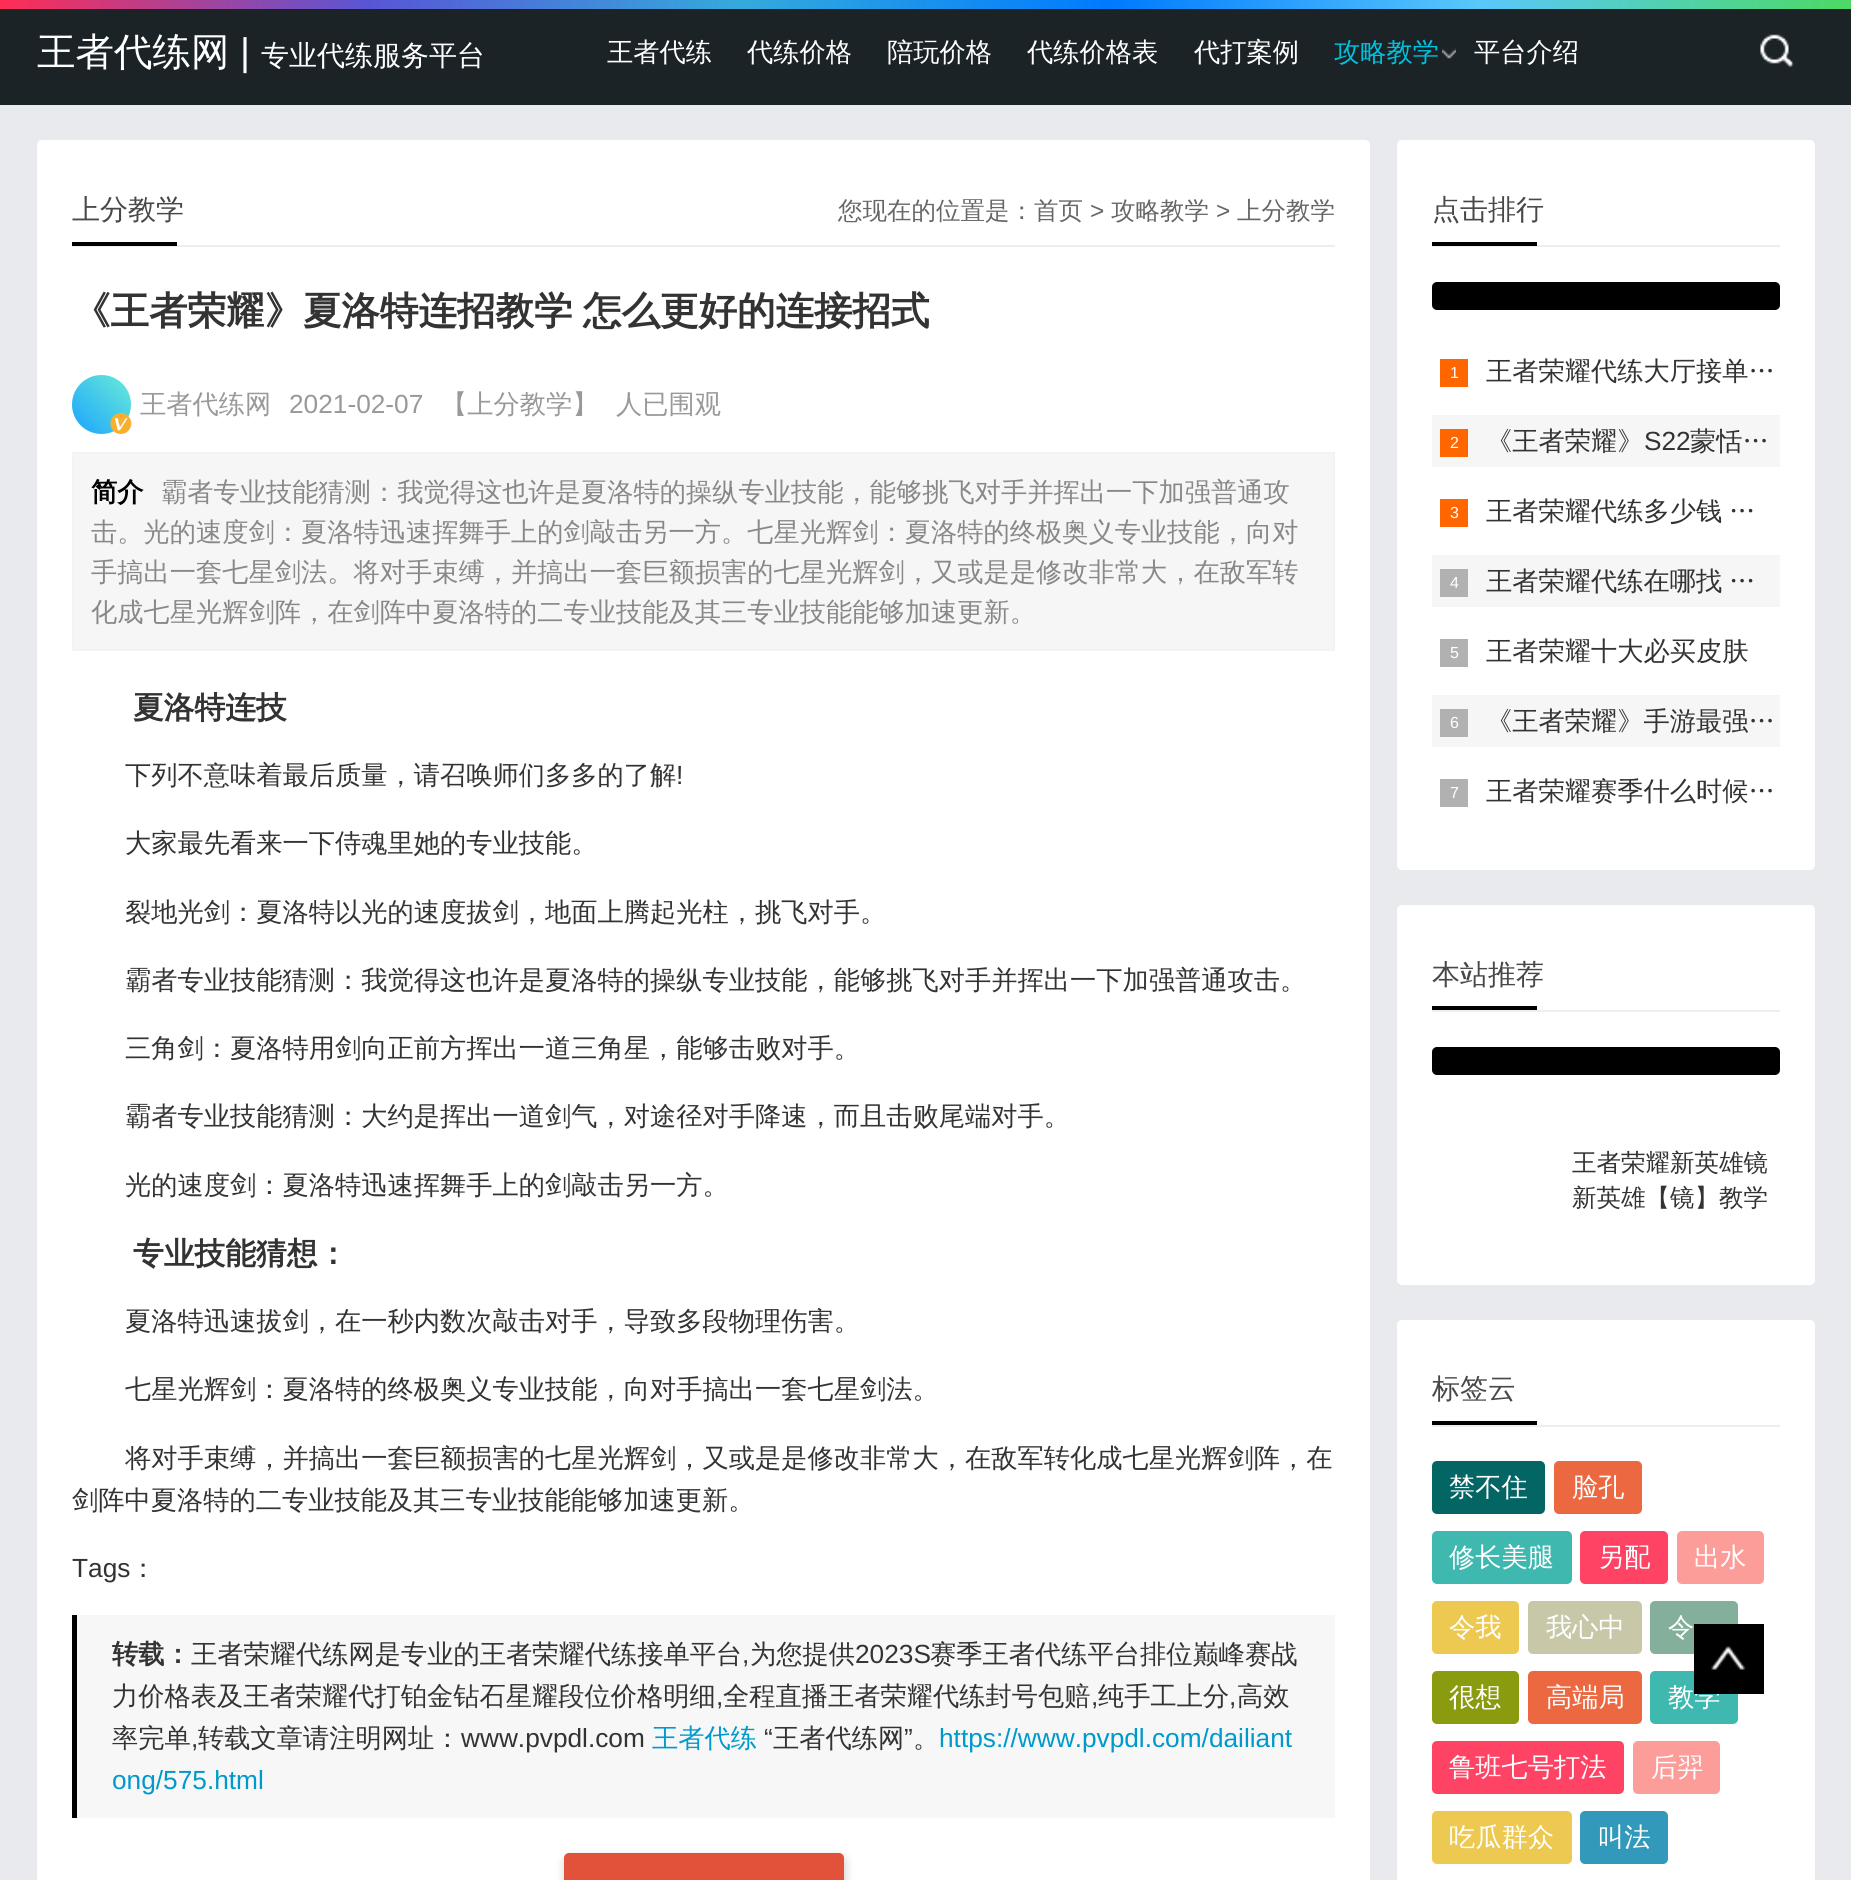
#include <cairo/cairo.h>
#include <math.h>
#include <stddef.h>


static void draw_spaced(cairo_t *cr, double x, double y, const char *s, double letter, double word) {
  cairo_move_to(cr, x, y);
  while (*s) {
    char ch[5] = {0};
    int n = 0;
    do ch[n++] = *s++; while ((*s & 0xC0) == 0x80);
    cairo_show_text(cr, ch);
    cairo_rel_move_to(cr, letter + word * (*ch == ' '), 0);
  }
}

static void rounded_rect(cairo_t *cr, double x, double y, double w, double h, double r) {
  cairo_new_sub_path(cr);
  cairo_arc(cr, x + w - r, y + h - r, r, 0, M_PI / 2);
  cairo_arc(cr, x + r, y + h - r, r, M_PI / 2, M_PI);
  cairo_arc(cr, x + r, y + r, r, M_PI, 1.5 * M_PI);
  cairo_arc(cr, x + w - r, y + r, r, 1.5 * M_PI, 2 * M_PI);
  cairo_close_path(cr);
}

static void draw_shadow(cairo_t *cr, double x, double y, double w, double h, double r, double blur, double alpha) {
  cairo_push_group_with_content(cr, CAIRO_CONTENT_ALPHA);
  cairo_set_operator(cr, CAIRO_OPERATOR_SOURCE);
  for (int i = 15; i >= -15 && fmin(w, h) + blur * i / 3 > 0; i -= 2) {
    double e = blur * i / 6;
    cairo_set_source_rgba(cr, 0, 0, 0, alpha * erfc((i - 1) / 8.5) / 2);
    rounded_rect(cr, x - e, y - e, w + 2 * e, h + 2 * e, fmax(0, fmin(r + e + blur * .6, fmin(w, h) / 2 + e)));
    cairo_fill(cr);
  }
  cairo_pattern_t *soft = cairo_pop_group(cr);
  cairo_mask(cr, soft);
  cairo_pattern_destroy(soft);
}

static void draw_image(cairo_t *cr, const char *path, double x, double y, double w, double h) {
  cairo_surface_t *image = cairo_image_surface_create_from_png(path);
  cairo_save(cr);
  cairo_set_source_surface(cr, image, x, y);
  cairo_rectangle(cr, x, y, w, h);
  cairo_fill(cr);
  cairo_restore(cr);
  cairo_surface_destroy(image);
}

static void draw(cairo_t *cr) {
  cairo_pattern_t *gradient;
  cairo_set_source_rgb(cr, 233 / 255.0, 234 / 255.0, 237 / 255.0);
  cairo_paint(cr);
  cairo_set_source_rgb(cr, 28 / 255.0, 35 / 255.0, 39 / 255.0);
  cairo_rectangle(cr, 0, 9, 1851, 96);
  cairo_fill(cr);
  gradient = cairo_pattern_create_linear(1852, 4.4, 0, 4.4);
  cairo_pattern_add_color_stop_rgba(gradient, 0, 76 / 255.0, 217 / 255.0, 100 / 255.0, 1);
  cairo_pattern_add_color_stop_rgba(gradient, 0.2, 90 / 255.0, 200 / 255.0, 250 / 255.0, 1);
  cairo_pattern_add_color_stop_rgba(gradient, 0.4, 0, 122 / 255.0, 1, 1);
  cairo_pattern_add_color_stop_rgba(gradient, 0.6, 52 / 255.0, 170 / 255.0, 220 / 255.0, 1);
  cairo_pattern_add_color_stop_rgba(gradient, 0.8, 88 / 255.0, 86 / 255.0, 214 / 255.0, 1);
  cairo_pattern_add_color_stop_rgba(gradient, 1, 1, 45 / 255.0, 85 / 255.0, 1);
  cairo_set_source(cr, gradient);
  cairo_pattern_destroy(gradient);
  cairo_rectangle(cr, 0, 0, 1851, 9);
  cairo_fill(cr);
  draw_image(cr, "images/1.png", 1442, 48, 14, 11);
  draw_image(cr, "images/2.png", 1760, 34, 34, 33);
  cairo_set_source_rgb(cr, 1, 1, 1);
  rounded_rect(cr, 37, 140, 1333, 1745, 5);
  cairo_fill(cr);
  cairo_set_source_rgb(cr, 238 / 255.0, 238 / 255.0, 238 / 255.0);
  cairo_rectangle(cr, 72, 245, 1263, 2);
  cairo_fill(cr);
  cairo_set_source_rgb(cr, 0, 0, 0);
  cairo_rectangle(cr, 72, 242, 105, 4);
  cairo_fill(cr);
  gradient = cairo_pattern_create_linear(72, 434, 131, 375);
  cairo_pattern_add_color_stop_rgba(gradient, 0, 26 / 255.0, 163 / 255.0, 1, 1);
  cairo_pattern_add_color_stop_rgba(gradient, 1, 106 / 255.0, 236 / 255.0, 214 / 255.0, 1);
  cairo_set_source(cr, gradient);
  cairo_pattern_destroy(gradient);
  cairo_arc(cr, 101.5, 404.5, 29.5, 0, 2 * M_PI);
  cairo_fill(cr);
  draw_image(cr, "images/3.png", 110, 413, 22, 21);
  cairo_set_source_rgb(cr, 246 / 255.0, 246 / 255.0, 246 / 255.0);
  cairo_rectangle(cr, 73, 453, 1261, 197);
  cairo_fill_preserve(cr);
  cairo_set_source_rgb(cr, 243 / 255.0, 243 / 255.0, 243 / 255.0);
  cairo_stroke(cr);
  cairo_set_source_rgb(cr, 247 / 255.0, 247 / 255.0, 247 / 255.0);
  cairo_rectangle(cr, 77, 1615, 1258, 203);
  cairo_fill(cr);
  cairo_set_source_rgb(cr, 0, 0, 0);
  cairo_rectangle(cr, 72, 1615, 5, 203);
  cairo_fill(cr);
  cairo_set_source_rgb(cr, 0, 0, 0);
  draw_shadow(cr, 565, 1857, 280, 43, 5, 5, 0.2);
  cairo_set_source_rgb(cr, 226 / 255.0, 82 / 255.0, 58 / 255.0);
  rounded_rect(cr, 564, 1853, 280, 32, 5);
  cairo_fill(cr);
  cairo_set_source_rgb(cr, 1, 1, 1);
  rounded_rect(cr, 1397, 140, 418, 730, 5);
  cairo_fill(cr);
  cairo_set_source_rgb(cr, 238 / 255.0, 238 / 255.0, 238 / 255.0);
  cairo_rectangle(cr, 1432, 245, 348, 2);
  cairo_fill(cr);
  cairo_set_source_rgb(cr, 0, 0, 0);
  cairo_rectangle(cr, 1432, 242, 105, 4);
  cairo_fill(cr);
  rounded_rect(cr, 1432, 282, 348, 28, 5);
  cairo_fill(cr);
  cairo_set_source_rgb(cr, 1, 102 / 255.0, 0);
  cairo_rectangle(cr, 1440, 359, 28, 28);
  cairo_fill(cr);
  cairo_set_source_rgb(cr, 246 / 255.0, 246 / 255.0, 246 / 255.0);
  cairo_rectangle(cr, 1432, 415, 348, 52);
  cairo_fill(cr);
  cairo_set_source_rgb(cr, 1, 102 / 255.0, 0);
  cairo_rectangle(cr, 1440, 429, 28, 28);
  cairo_fill(cr);
  cairo_rectangle(cr, 1440, 499, 28, 28);
  cairo_fill(cr);
  cairo_set_source_rgb(cr, 246 / 255.0, 246 / 255.0, 246 / 255.0);
  cairo_rectangle(cr, 1432, 555, 348, 52);
  cairo_fill(cr);
  cairo_set_source_rgb(cr, 177 / 255.0, 177 / 255.0, 177 / 255.0);
  cairo_rectangle(cr, 1440, 569, 28, 28);
  cairo_fill(cr);
  cairo_rectangle(cr, 1440, 639, 28, 28);
  cairo_fill(cr);
  cairo_set_source_rgb(cr, 246 / 255.0, 246 / 255.0, 246 / 255.0);
  cairo_rectangle(cr, 1432, 695, 348, 52);
  cairo_fill(cr);
  cairo_set_source_rgb(cr, 177 / 255.0, 177 / 255.0, 177 / 255.0);
  cairo_rectangle(cr, 1440, 709, 28, 28);
  cairo_fill(cr);
  cairo_rectangle(cr, 1440, 779, 28, 28);
  cairo_fill(cr);
  cairo_set_source_rgb(cr, 1, 1, 1);
  rounded_rect(cr, 1397, 905, 418, 380, 5);
  cairo_fill(cr);
  cairo_set_source_rgb(cr, 238 / 255.0, 238 / 255.0, 238 / 255.0);
  cairo_rectangle(cr, 1432, 1010, 348, 2);
  cairo_fill(cr);
  cairo_set_source_rgb(cr, 0, 0, 0);
  cairo_rectangle(cr, 1432, 1006, 105, 4);
  cairo_fill(cr);
  rounded_rect(cr, 1432, 1047, 348, 28, 5);
  cairo_fill(cr);
  cairo_set_source_rgb(cr, 1, 1, 1);
  rounded_rect(cr, 1397, 1320, 418, 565, 5);
  cairo_fill(cr);
  cairo_set_source_rgb(cr, 238 / 255.0, 238 / 255.0, 238 / 255.0);
  cairo_rectangle(cr, 1432, 1425, 348, 2);
  cairo_fill(cr);
  cairo_set_source_rgb(cr, 0, 0, 0);
  cairo_rectangle(cr, 1432, 1421, 105, 4);
  cairo_fill(cr);
  cairo_set_source_rgb(cr, 3 / 255.0, 101 / 255.0, 100 / 255.0);
  rounded_rect(cr, 1432, 1461, 113, 53, 5);
  cairo_fill(cr);
  cairo_set_source_rgb(cr, 235 / 255.0, 104 / 255.0, 65 / 255.0);
  rounded_rect(cr, 1554, 1461, 88, 53, 5);
  cairo_fill(cr);
  cairo_set_source_rgb(cr, 63 / 255.0, 184 / 255.0, 175 / 255.0);
  rounded_rect(cr, 1432, 1531, 140, 53, 5);
  cairo_fill(cr);
  cairo_set_source_rgb(cr, 254 / 255.0, 67 / 255.0, 101 / 255.0);
  rounded_rect(cr, 1580, 1531, 88, 53, 5);
  cairo_fill(cr);
  cairo_set_source_rgb(cr, 252 / 255.0, 157 / 255.0, 154 / 255.0);
  rounded_rect(cr, 1677, 1531, 87, 53, 5);
  cairo_fill(cr);
  cairo_set_source_rgb(cr, 237 / 255.0, 201 / 255.0, 81 / 255.0);
  rounded_rect(cr, 1432, 1601, 87, 53, 5);
  cairo_fill(cr);
  cairo_set_source_rgb(cr, 200 / 255.0, 200 / 255.0, 169 / 255.0);
  rounded_rect(cr, 1528, 1601, 114, 53, 5);
  cairo_fill(cr);
  cairo_set_source_rgb(cr, 131 / 255.0, 175 / 255.0, 155 / 255.0);
  rounded_rect(cr, 1650, 1601, 88, 53, 5);
  cairo_fill(cr);
  cairo_set_source_rgb(cr, 138 / 255.0, 155 / 255.0, 15 / 255.0);
  rounded_rect(cr, 1432, 1671, 87, 53, 5);
  cairo_fill(cr);
  cairo_set_source_rgb(cr, 235 / 255.0, 104 / 255.0, 65 / 255.0);
  rounded_rect(cr, 1528, 1671, 114, 53, 5);
  cairo_fill(cr);
  cairo_set_source_rgb(cr, 63 / 255.0, 184 / 255.0, 175 / 255.0);
  rounded_rect(cr, 1650, 1671, 88, 53, 5);
  cairo_fill(cr);
  cairo_set_source_rgb(cr, 254 / 255.0, 67 / 255.0, 101 / 255.0);
  rounded_rect(cr, 1432, 1741, 192, 53, 5);
  cairo_fill(cr);
  cairo_set_source_rgb(cr, 252 / 255.0, 157 / 255.0, 154 / 255.0);
  rounded_rect(cr, 1633, 1741, 87, 53, 5);
  cairo_fill(cr);
  cairo_set_source_rgb(cr, 237 / 255.0, 201 / 255.0, 81 / 255.0);
  rounded_rect(cr, 1432, 1811, 140, 53, 5);
  cairo_fill(cr);
  cairo_set_source_rgb(cr, 50 / 255.0, 153 / 255.0, 187 / 255.0);
  rounded_rect(cr, 1580, 1811, 88, 53, 5);
  cairo_fill(cr);
  cairo_select_font_face(cr, "WenQuanYi Zen Hei Medium", CAIRO_FONT_SLANT_NORMAL, CAIRO_FONT_WEIGHT_NORMAL);
  cairo_set_font_size(cr, 38.5);
  cairo_set_source_rgb(cr, 1, 1, 1);
  cairo_move_to(cr, 37, 65);
  cairo_show_text(cr, "王者代练网");
  cairo_select_font_face(cr, "Liberation Sans", CAIRO_FONT_SLANT_NORMAL, CAIRO_FONT_WEIGHT_NORMAL);
  cairo_move_to(cr, 240, 65);
  cairo_show_text(cr, "|");
  cairo_select_font_face(cr, "WenQuanYi Zen Hei Medium", CAIRO_FONT_SLANT_NORMAL, CAIRO_FONT_WEIGHT_NORMAL);
  cairo_set_font_size(cr, 28);
  cairo_move_to(cr, 261, 65);
  cairo_show_text(cr, "专业代练服务平台");
  cairo_set_font_size(cr, 26.25);
  cairo_move_to(cr, 607, 61);
  cairo_show_text(cr, "王者代练");
  cairo_move_to(cr, 747, 61);
  cairo_show_text(cr, "代练价格");
  cairo_move_to(cr, 887, 61);
  cairo_show_text(cr, "陪玩价格");
  cairo_move_to(cr, 1027, 61);
  cairo_show_text(cr, "代练价格表");
  cairo_move_to(cr, 1194, 61);
  cairo_show_text(cr, "代打案例");
  cairo_set_source_rgb(cr, 0, 193 / 255.0, 222 / 255.0);
  cairo_move_to(cr, 1334, 61);
  cairo_show_text(cr, "攻略教学");
  cairo_set_source_rgb(cr, 1, 1, 1);
  cairo_move_to(cr, 1474, 61);
  cairo_show_text(cr, "平台介绍");
  cairo_set_font_size(cr, 28);
  cairo_set_source_rgb(cr, 72 / 255.0, 72 / 255.0, 72 / 255.0);
  cairo_move_to(cr, 72, 219);
  cairo_show_text(cr, "上分教学");
  cairo_set_font_size(cr, 24.5);
  cairo_set_source_rgb(cr, 102 / 255.0, 102 / 255.0, 102 / 255.0);
  cairo_move_to(cr, 838, 219);
  cairo_show_text(cr, "您现在的位置是：首页");
  cairo_select_font_face(cr, "Liberation Sans", CAIRO_FONT_SLANT_NORMAL, CAIRO_FONT_WEIGHT_NORMAL);
  cairo_move_to(cr, 1090, 219);
  cairo_show_text(cr, ">");
  cairo_select_font_face(cr, "WenQuanYi Zen Hei Medium", CAIRO_FONT_SLANT_NORMAL, CAIRO_FONT_WEIGHT_NORMAL);
  cairo_move_to(cr, 1111, 219);
  cairo_show_text(cr, "攻略教学");
  cairo_select_font_face(cr, "Liberation Sans", CAIRO_FONT_SLANT_NORMAL, CAIRO_FONT_WEIGHT_NORMAL);
  cairo_move_to(cr, 1216, 219);
  cairo_show_text(cr, ">");
  cairo_select_font_face(cr, "WenQuanYi Zen Hei Medium", CAIRO_FONT_SLANT_NORMAL, CAIRO_FONT_WEIGHT_NORMAL);
  cairo_move_to(cr, 1237, 219);
  cairo_show_text(cr, "上分教学");
  cairo_select_font_face(cr, "WenQuanYi Zen Hei", CAIRO_FONT_SLANT_NORMAL, CAIRO_FONT_WEIGHT_BOLD);
  cairo_set_font_size(cr, 38.5);
  cairo_set_source_rgb(cr, 51 / 255.0, 51 / 255.0, 51 / 255.0);
  draw_spaced(cr, 72, 324, "《王者荣耀》夏洛特连招教学 怎么更好的连接招式", 0, -1);
  cairo_select_font_face(cr, "WenQuanYi Zen Hei Medium", CAIRO_FONT_SLANT_NORMAL, CAIRO_FONT_WEIGHT_NORMAL);
  cairo_set_font_size(cr, 26.25);
  cairo_set_source_rgb(cr, 153 / 255.0, 153 / 255.0, 153 / 255.0);
  cairo_move_to(cr, 140, 413);
  cairo_show_text(cr, "王者代练网");
  cairo_select_font_face(cr, "Liberation Sans", CAIRO_FONT_SLANT_NORMAL, CAIRO_FONT_WEIGHT_NORMAL);
  cairo_move_to(cr, 289, 413);
  cairo_show_text(cr, "2021-02-07");
  cairo_select_font_face(cr, "WenQuanYi Zen Hei Medium", CAIRO_FONT_SLANT_NORMAL, CAIRO_FONT_WEIGHT_NORMAL);
  cairo_move_to(cr, 441, 413);
  cairo_show_text(cr, "【上分教学】");
  cairo_move_to(cr, 616, 413);
  cairo_show_text(cr, "人已围观");
  cairo_select_font_face(cr, "WenQuanYi Zen Hei", CAIRO_FONT_SLANT_NORMAL, CAIRO_FONT_WEIGHT_BOLD);
  cairo_set_source_rgb(cr, 0, 0, 0);
  cairo_move_to(cr, 91, 501);
  cairo_show_text(cr, "简介");
  cairo_select_font_face(cr, "WenQuanYi Zen Hei Medium", CAIRO_FONT_SLANT_NORMAL, CAIRO_FONT_WEIGHT_NORMAL);
  cairo_set_source_rgb(cr, 136 / 255.0, 136 / 255.0, 136 / 255.0);
  cairo_move_to(cr, 161, 501);
  cairo_show_text(cr, "霸者专业技能猜测：我觉得这也许是夏洛特的操纵专业技能，能够挑飞对手并挥出一下加强普通攻");
  cairo_move_to(cr, 91, 541);
  cairo_show_text(cr, "击。光的速度剑：夏洛特迅速挥舞手上的剑敲击另一方。七星光辉剑：夏洛特的终极奥义专业技能，向对");
  cairo_move_to(cr, 91, 581);
  cairo_show_text(cr, "手搞出一套七星剑法。将对手束缚，并搞出一套巨额损害的七星光辉剑，又或是是修改非常大，在敌军转");
  cairo_move_to(cr, 91, 621);
  cairo_show_text(cr, "化成七星光辉剑阵，在剑阵中夏洛特的二专业技能及其三专业技能能够加速更新。");
  cairo_select_font_face(cr, "WenQuanYi Zen Hei", CAIRO_FONT_SLANT_NORMAL, CAIRO_FONT_WEIGHT_BOLD);
  cairo_set_font_size(cr, 30.75);
  cairo_set_source_rgb(cr, 51 / 255.0, 51 / 255.0, 51 / 255.0);
  cairo_move_to(cr, 133, 718);
  cairo_show_text(cr, "夏洛特连技");
  cairo_select_font_face(cr, "WenQuanYi Zen Hei Medium", CAIRO_FONT_SLANT_NORMAL, CAIRO_FONT_WEIGHT_NORMAL);
  cairo_set_font_size(cr, 26.25);
  cairo_move_to(cr, 125, 784);
  cairo_show_text(cr, "下列不意味着最后质量，请召唤师们多多的了解");
  cairo_select_font_face(cr, "Liberation Sans", CAIRO_FONT_SLANT_NORMAL, CAIRO_FONT_WEIGHT_NORMAL);
  cairo_move_to(cr, 676, 784);
  cairo_show_text(cr, "!");
  cairo_select_font_face(cr, "WenQuanYi Zen Hei Medium", CAIRO_FONT_SLANT_NORMAL, CAIRO_FONT_WEIGHT_NORMAL);
  cairo_move_to(cr, 125, 852);
  cairo_show_text(cr, "大家最先看来一下侍魂里她的专业技能。");
  cairo_move_to(cr, 125, 921);
  cairo_show_text(cr, "裂地光剑：夏洛特以光的速度拔剑，地面上腾起光柱，挑飞对手。");
  cairo_move_to(cr, 125, 989);
  cairo_show_text(cr, "霸者专业技能猜测：我觉得这也许是夏洛特的操纵专业技能，能够挑飞对手并挥出一下加强普通攻击。");
  cairo_move_to(cr, 125, 1057);
  cairo_show_text(cr, "三角剑：夏洛特用剑向正前方挥出一道三角星，能够击败对手。");
  cairo_move_to(cr, 125, 1125);
  cairo_show_text(cr, "霸者专业技能猜测：大约是挥出一道剑气，对途径对手降速，而且击败尾端对手。");
  cairo_move_to(cr, 125, 1194);
  cairo_show_text(cr, "光的速度剑：夏洛特迅速挥舞手上的剑敲击另一方。");
  cairo_select_font_face(cr, "WenQuanYi Zen Hei", CAIRO_FONT_SLANT_NORMAL, CAIRO_FONT_WEIGHT_BOLD);
  cairo_set_font_size(cr, 30.75);
  cairo_move_to(cr, 133, 1264);
  cairo_show_text(cr, "专业技能猜想：");
  cairo_select_font_face(cr, "WenQuanYi Zen Hei Medium", CAIRO_FONT_SLANT_NORMAL, CAIRO_FONT_WEIGHT_NORMAL);
  cairo_set_font_size(cr, 26.25);
  cairo_move_to(cr, 125, 1330);
  cairo_show_text(cr, "夏洛特迅速拔剑，在一秒内数次敲击对手，导致多段物理伤害。");
  cairo_move_to(cr, 125, 1398);
  cairo_show_text(cr, "七星光辉剑：夏洛特的终极奥义专业技能，向对手搞出一套七星剑法。");
  cairo_move_to(cr, 125, 1467);
  cairo_show_text(cr, "将对手束缚，并搞出一套巨额损害的七星光辉剑，又或是是修改非常大，在敌军转化成七星光辉剑阵，在");
  cairo_move_to(cr, 72, 1509);
  cairo_show_text(cr, "剑阵中夏洛特的二专业技能及其三专业技能能够加速更新。");
  cairo_select_font_face(cr, "Liberation Sans", CAIRO_FONT_SLANT_NORMAL, CAIRO_FONT_WEIGHT_NORMAL);
  cairo_move_to(cr, 72, 1577);
  cairo_show_text(cr, "Tags");
  cairo_select_font_face(cr, "WenQuanYi Zen Hei Medium", CAIRO_FONT_SLANT_NORMAL, CAIRO_FONT_WEIGHT_NORMAL);
  cairo_move_to(cr, 130, 1577);
  cairo_show_text(cr, "：");
  cairo_select_font_face(cr, "WenQuanYi Zen Hei", CAIRO_FONT_SLANT_NORMAL, CAIRO_FONT_WEIGHT_BOLD);
  cairo_move_to(cr, 112, 1663);
  cairo_show_text(cr, "转载：");
  cairo_select_font_face(cr, "WenQuanYi Zen Hei Medium", CAIRO_FONT_SLANT_NORMAL, CAIRO_FONT_WEIGHT_NORMAL);
  cairo_move_to(cr, 191, 1663);
  cairo_show_text(cr, "王者荣耀代练网是专业的王者荣耀代练接单平台");
  cairo_select_font_face(cr, "Liberation Sans", CAIRO_FONT_SLANT_NORMAL, CAIRO_FONT_WEIGHT_NORMAL);
  cairo_move_to(cr, 742, 1663);
  cairo_show_text(cr, ",");
  cairo_select_font_face(cr, "WenQuanYi Zen Hei Medium", CAIRO_FONT_SLANT_NORMAL, CAIRO_FONT_WEIGHT_NORMAL);
  cairo_move_to(cr, 750, 1663);
  cairo_show_text(cr, "为您提供");
  cairo_select_font_face(cr, "Liberation Sans", CAIRO_FONT_SLANT_NORMAL, CAIRO_FONT_WEIGHT_NORMAL);
  cairo_move_to(cr, 855, 1663);
  cairo_show_text(cr, "2023S");
  cairo_select_font_face(cr, "WenQuanYi Zen Hei Medium", CAIRO_FONT_SLANT_NORMAL, CAIRO_FONT_WEIGHT_NORMAL);
  cairo_move_to(cr, 930, 1663);
  cairo_show_text(cr, "赛季王者代练平台排位巅峰赛战");
  cairo_move_to(cr, 112, 1705);
  cairo_show_text(cr, "力价格表及王者荣耀代打铂金钻石星耀段位价格明细");
  cairo_select_font_face(cr, "Liberation Sans", CAIRO_FONT_SLANT_NORMAL, CAIRO_FONT_WEIGHT_NORMAL);
  cairo_move_to(cr, 716, 1705);
  cairo_show_text(cr, ",");
  cairo_select_font_face(cr, "WenQuanYi Zen Hei Medium", CAIRO_FONT_SLANT_NORMAL, CAIRO_FONT_WEIGHT_NORMAL);
  cairo_move_to(cr, 723, 1705);
  cairo_show_text(cr, "全程直播王者荣耀代练封号包赔");
  cairo_select_font_face(cr, "Liberation Sans", CAIRO_FONT_SLANT_NORMAL, CAIRO_FONT_WEIGHT_NORMAL);
  cairo_move_to(cr, 1091, 1705);
  cairo_show_text(cr, ",");
  cairo_select_font_face(cr, "WenQuanYi Zen Hei Medium", CAIRO_FONT_SLANT_NORMAL, CAIRO_FONT_WEIGHT_NORMAL);
  cairo_move_to(cr, 1098, 1705);
  cairo_show_text(cr, "纯手工上分");
  cairo_select_font_face(cr, "Liberation Sans", CAIRO_FONT_SLANT_NORMAL, CAIRO_FONT_WEIGHT_NORMAL);
  cairo_move_to(cr, 1229, 1705);
  cairo_show_text(cr, ",");
  cairo_select_font_face(cr, "WenQuanYi Zen Hei Medium", CAIRO_FONT_SLANT_NORMAL, CAIRO_FONT_WEIGHT_NORMAL);
  cairo_move_to(cr, 1237, 1705);
  cairo_show_text(cr, "高效");
  cairo_move_to(cr, 112, 1747);
  cairo_show_text(cr, "率完单");
  cairo_select_font_face(cr, "Liberation Sans", CAIRO_FONT_SLANT_NORMAL, CAIRO_FONT_WEIGHT_NORMAL);
  cairo_move_to(cr, 191, 1747);
  cairo_show_text(cr, ",");
  cairo_select_font_face(cr, "WenQuanYi Zen Hei Medium", CAIRO_FONT_SLANT_NORMAL, CAIRO_FONT_WEIGHT_NORMAL);
  cairo_move_to(cr, 198, 1747);
  cairo_show_text(cr, "转载文章请注明网址：");
  cairo_select_font_face(cr, "Liberation Sans", CAIRO_FONT_SLANT_NORMAL, CAIRO_FONT_WEIGHT_NORMAL);
  cairo_move_to(cr, 461, 1747);
  cairo_show_text(cr, "www.pvpdl.com");
  cairo_select_font_face(cr, "WenQuanYi Zen Hei Medium", CAIRO_FONT_SLANT_NORMAL, CAIRO_FONT_WEIGHT_NORMAL);
  cairo_set_source_rgb(cr, 0, 153 / 255.0, 204 / 255.0);
  cairo_move_to(cr, 652, 1747);
  cairo_show_text(cr, "王者代练");
  cairo_select_font_face(cr, "Liberation Sans", CAIRO_FONT_SLANT_NORMAL, CAIRO_FONT_WEIGHT_NORMAL);
  cairo_set_source_rgb(cr, 51 / 255.0, 51 / 255.0, 51 / 255.0);
  cairo_move_to(cr, 764, 1747);
  cairo_show_text(cr, "“");
  cairo_select_font_face(cr, "WenQuanYi Zen Hei Medium", CAIRO_FONT_SLANT_NORMAL, CAIRO_FONT_WEIGHT_NORMAL);
  cairo_move_to(cr, 773, 1747);
  cairo_show_text(cr, "王者代练网");
  cairo_select_font_face(cr, "Liberation Sans", CAIRO_FONT_SLANT_NORMAL, CAIRO_FONT_WEIGHT_NORMAL);
  cairo_move_to(cr, 904, 1747);
  cairo_show_text(cr, "”");
  cairo_select_font_face(cr, "WenQuanYi Zen Hei Medium", CAIRO_FONT_SLANT_NORMAL, CAIRO_FONT_WEIGHT_NORMAL);
  cairo_move_to(cr, 913, 1747);
  cairo_show_text(cr, "。");
  cairo_select_font_face(cr, "Liberation Sans", CAIRO_FONT_SLANT_NORMAL, CAIRO_FONT_WEIGHT_NORMAL);
  cairo_set_source_rgb(cr, 0, 153 / 255.0, 204 / 255.0);
  cairo_move_to(cr, 939, 1747);
  cairo_show_text(cr, "https://www.pvpdl.com/dailiant");
  cairo_move_to(cr, 112, 1789);
  cairo_show_text(cr, "ong/575.html");
  cairo_select_font_face(cr, "WenQuanYi Zen Hei Medium", CAIRO_FONT_SLANT_NORMAL, CAIRO_FONT_WEIGHT_NORMAL);
  cairo_set_font_size(cr, 28);
  cairo_set_source_rgb(cr, 72 / 255.0, 72 / 255.0, 72 / 255.0);
  cairo_move_to(cr, 1432, 219);
  cairo_show_text(cr, "点击排行");
  cairo_select_font_face(cr, "Liberation Sans", CAIRO_FONT_SLANT_NORMAL, CAIRO_FONT_WEIGHT_NORMAL);
  cairo_set_font_size(cr, 16);
  cairo_set_source_rgb(cr, 1, 1, 1);
  cairo_move_to(cr, 1450, 378);
  cairo_show_text(cr, "1");
  cairo_select_font_face(cr, "WenQuanYi Zen Hei Medium", CAIRO_FONT_SLANT_NORMAL, CAIRO_FONT_WEIGHT_NORMAL);
  cairo_set_font_size(cr, 26.25);
  cairo_set_source_rgb(cr, 51 / 255.0, 51 / 255.0, 51 / 255.0);
  cairo_move_to(cr, 1486, 380);
  cairo_show_text(cr, "王者荣耀代练大厅接单…");
  cairo_select_font_face(cr, "Liberation Sans", CAIRO_FONT_SLANT_NORMAL, CAIRO_FONT_WEIGHT_NORMAL);
  cairo_set_font_size(cr, 16);
  cairo_set_source_rgb(cr, 1, 1, 1);
  cairo_move_to(cr, 1450, 448);
  cairo_show_text(cr, "2");
  cairo_select_font_face(cr, "WenQuanYi Zen Hei Medium", CAIRO_FONT_SLANT_NORMAL, CAIRO_FONT_WEIGHT_NORMAL);
  cairo_set_font_size(cr, 26.25);
  cairo_set_source_rgb(cr, 51 / 255.0, 51 / 255.0, 51 / 255.0);
  cairo_move_to(cr, 1486, 450);
  cairo_show_text(cr, "《王者荣耀》");
  cairo_select_font_face(cr, "Liberation Sans", CAIRO_FONT_SLANT_NORMAL, CAIRO_FONT_WEIGHT_NORMAL);
  cairo_move_to(cr, 1644, 450);
  cairo_show_text(cr, "S22");
  cairo_select_font_face(cr, "WenQuanYi Zen Hei Medium", CAIRO_FONT_SLANT_NORMAL, CAIRO_FONT_WEIGHT_NORMAL);
  draw_spaced(cr, 1690, 450, "蒙恬…", 0, -1);
  cairo_select_font_face(cr, "Liberation Sans", CAIRO_FONT_SLANT_NORMAL, CAIRO_FONT_WEIGHT_NORMAL);
  cairo_set_font_size(cr, 16);
  cairo_set_source_rgb(cr, 1, 1, 1);
  cairo_move_to(cr, 1450, 518);
  cairo_show_text(cr, "3");
  cairo_select_font_face(cr, "WenQuanYi Zen Hei Medium", CAIRO_FONT_SLANT_NORMAL, CAIRO_FONT_WEIGHT_NORMAL);
  cairo_set_font_size(cr, 26.25);
  cairo_set_source_rgb(cr, 51 / 255.0, 51 / 255.0, 51 / 255.0);
  draw_spaced(cr, 1486, 520, "王者荣耀代练多少钱 …", 0, -1);
  cairo_select_font_face(cr, "Liberation Sans", CAIRO_FONT_SLANT_NORMAL, CAIRO_FONT_WEIGHT_NORMAL);
  cairo_set_font_size(cr, 16);
  cairo_set_source_rgb(cr, 1, 1, 1);
  cairo_move_to(cr, 1450, 588);
  cairo_show_text(cr, "4");
  cairo_select_font_face(cr, "WenQuanYi Zen Hei Medium", CAIRO_FONT_SLANT_NORMAL, CAIRO_FONT_WEIGHT_NORMAL);
  cairo_set_font_size(cr, 26.25);
  cairo_set_source_rgb(cr, 51 / 255.0, 51 / 255.0, 51 / 255.0);
  draw_spaced(cr, 1486, 590, "王者荣耀代练在哪找 …", 0, -1);
  cairo_select_font_face(cr, "Liberation Sans", CAIRO_FONT_SLANT_NORMAL, CAIRO_FONT_WEIGHT_NORMAL);
  cairo_set_font_size(cr, 16);
  cairo_set_source_rgb(cr, 1, 1, 1);
  cairo_move_to(cr, 1450, 658);
  cairo_show_text(cr, "5");
  cairo_select_font_face(cr, "WenQuanYi Zen Hei Medium", CAIRO_FONT_SLANT_NORMAL, CAIRO_FONT_WEIGHT_NORMAL);
  cairo_set_font_size(cr, 26.25);
  cairo_set_source_rgb(cr, 51 / 255.0, 51 / 255.0, 51 / 255.0);
  cairo_move_to(cr, 1486, 660);
  cairo_show_text(cr, "王者荣耀十大必买皮肤");
  cairo_select_font_face(cr, "Liberation Sans", CAIRO_FONT_SLANT_NORMAL, CAIRO_FONT_WEIGHT_NORMAL);
  cairo_set_font_size(cr, 16);
  cairo_set_source_rgb(cr, 1, 1, 1);
  cairo_move_to(cr, 1450, 728);
  cairo_show_text(cr, "6");
  cairo_select_font_face(cr, "WenQuanYi Zen Hei Medium", CAIRO_FONT_SLANT_NORMAL, CAIRO_FONT_WEIGHT_NORMAL);
  cairo_set_font_size(cr, 26.25);
  cairo_set_source_rgb(cr, 51 / 255.0, 51 / 255.0, 51 / 255.0);
  cairo_move_to(cr, 1486, 730);
  cairo_show_text(cr, "《王者荣耀》手游最强…");
  cairo_select_font_face(cr, "Liberation Sans", CAIRO_FONT_SLANT_NORMAL, CAIRO_FONT_WEIGHT_NORMAL);
  cairo_set_font_size(cr, 16);
  cairo_set_source_rgb(cr, 1, 1, 1);
  cairo_move_to(cr, 1450, 798);
  cairo_show_text(cr, "7");
  cairo_select_font_face(cr, "WenQuanYi Zen Hei Medium", CAIRO_FONT_SLANT_NORMAL, CAIRO_FONT_WEIGHT_NORMAL);
  cairo_set_font_size(cr, 26.25);
  cairo_set_source_rgb(cr, 51 / 255.0, 51 / 255.0, 51 / 255.0);
  draw_spaced(cr, 1486, 800, "王者荣耀赛季什么时候…", 0, -1);
  cairo_set_font_size(cr, 28);
  cairo_set_source_rgb(cr, 72 / 255.0, 72 / 255.0, 72 / 255.0);
  cairo_move_to(cr, 1432, 984);
  cairo_show_text(cr, "本站推荐");
  cairo_set_font_size(cr, 24.5);
  cairo_set_source_rgb(cr, 51 / 255.0, 51 / 255.0, 51 / 255.0);
  cairo_move_to(cr, 1572, 1171);
  cairo_show_text(cr, "王者荣耀新英雄镜");
  cairo_move_to(cr, 1572, 1206);
  cairo_show_text(cr, "新英雄【镜】教学");
  cairo_set_font_size(cr, 28);
  cairo_set_source_rgb(cr, 72 / 255.0, 72 / 255.0, 72 / 255.0);
  cairo_move_to(cr, 1432, 1398);
  cairo_show_text(cr, "标签云");
  cairo_set_font_size(cr, 26.25);
  cairo_set_source_rgb(cr, 1, 1, 1);
  cairo_move_to(cr, 1449, 1496);
  cairo_show_text(cr, "禁不住");
  cairo_move_to(cr, 1572, 1496);
  cairo_show_text(cr, "脸孔");
  cairo_move_to(cr, 1449, 1566);
  cairo_show_text(cr, "修长美腿");
  cairo_move_to(cr, 1598, 1566);
  cairo_show_text(cr, "另配");
  cairo_move_to(cr, 1694, 1566);
  cairo_show_text(cr, "出水");
  cairo_move_to(cr, 1449, 1636);
  cairo_show_text(cr, "令我");
  cairo_move_to(cr, 1546, 1636);
  cairo_show_text(cr, "我心中");
  cairo_move_to(cr, 1668, 1636);
  cairo_show_text(cr, "令");
  cairo_move_to(cr, 1449, 1706);
  cairo_show_text(cr, "很想");
  cairo_move_to(cr, 1546, 1706);
  cairo_show_text(cr, "高端局");
  cairo_move_to(cr, 1668, 1706);
  cairo_show_text(cr, "教学");
  cairo_move_to(cr, 1449, 1776);
  cairo_show_text(cr, "鲁班七号打法");
  cairo_move_to(cr, 1651, 1776);
  cairo_show_text(cr, "后羿");
  cairo_move_to(cr, 1449, 1846);
  cairo_show_text(cr, "吃瓜群众");
  cairo_move_to(cr, 1598, 1846);
  cairo_show_text(cr, "叫法");
  cairo_set_source_rgb(cr, 0, 0, 0);
  cairo_rectangle(cr, 1694, 1624, 70, 70);
  cairo_fill(cr);
  draw_image(cr, "images/4.png", 1711, 1646, 35, 24);
}

int main(void) {
  cairo_surface_t *surface = cairo_image_surface_create(CAIRO_FORMAT_RGB24, 1851, 1880);
  cairo_t *cr = cairo_create(surface);
  cairo_font_options_t *options = cairo_font_options_create();
  cairo_font_options_set_hint_metrics(options, CAIRO_HINT_METRICS_OFF);
  cairo_font_options_set_hint_style(options, CAIRO_HINT_STYLE_NONE);
  cairo_set_font_options(cr, options);
  cairo_set_miter_limit(cr, 4);
  draw(cr);
  cairo_surface_write_to_png(surface, "out.png");
  cairo_font_options_destroy(options);
  cairo_destroy(cr);
  cairo_surface_destroy(surface);
  return 0;
}
